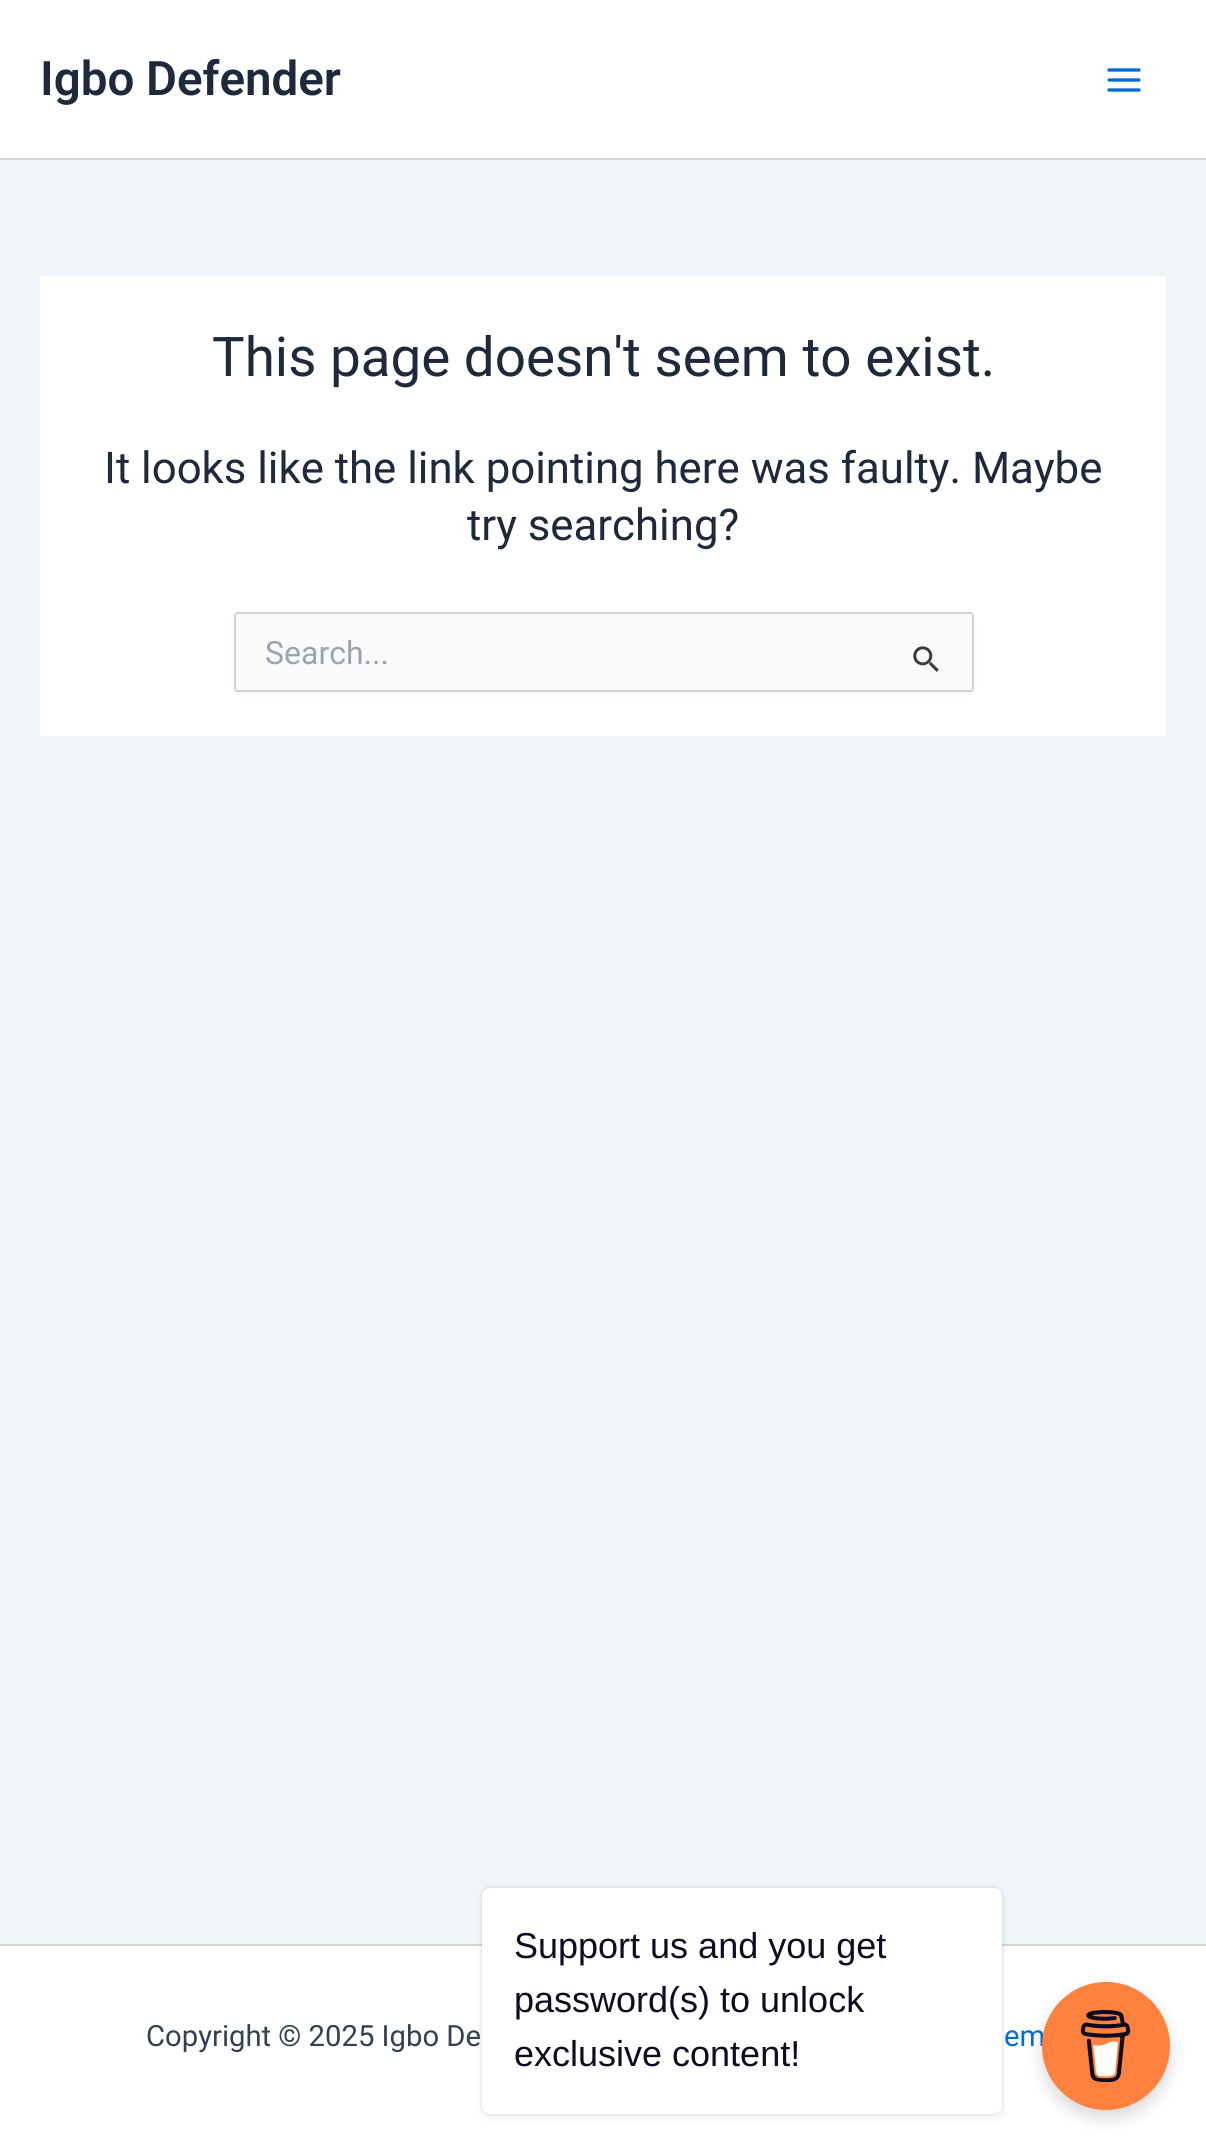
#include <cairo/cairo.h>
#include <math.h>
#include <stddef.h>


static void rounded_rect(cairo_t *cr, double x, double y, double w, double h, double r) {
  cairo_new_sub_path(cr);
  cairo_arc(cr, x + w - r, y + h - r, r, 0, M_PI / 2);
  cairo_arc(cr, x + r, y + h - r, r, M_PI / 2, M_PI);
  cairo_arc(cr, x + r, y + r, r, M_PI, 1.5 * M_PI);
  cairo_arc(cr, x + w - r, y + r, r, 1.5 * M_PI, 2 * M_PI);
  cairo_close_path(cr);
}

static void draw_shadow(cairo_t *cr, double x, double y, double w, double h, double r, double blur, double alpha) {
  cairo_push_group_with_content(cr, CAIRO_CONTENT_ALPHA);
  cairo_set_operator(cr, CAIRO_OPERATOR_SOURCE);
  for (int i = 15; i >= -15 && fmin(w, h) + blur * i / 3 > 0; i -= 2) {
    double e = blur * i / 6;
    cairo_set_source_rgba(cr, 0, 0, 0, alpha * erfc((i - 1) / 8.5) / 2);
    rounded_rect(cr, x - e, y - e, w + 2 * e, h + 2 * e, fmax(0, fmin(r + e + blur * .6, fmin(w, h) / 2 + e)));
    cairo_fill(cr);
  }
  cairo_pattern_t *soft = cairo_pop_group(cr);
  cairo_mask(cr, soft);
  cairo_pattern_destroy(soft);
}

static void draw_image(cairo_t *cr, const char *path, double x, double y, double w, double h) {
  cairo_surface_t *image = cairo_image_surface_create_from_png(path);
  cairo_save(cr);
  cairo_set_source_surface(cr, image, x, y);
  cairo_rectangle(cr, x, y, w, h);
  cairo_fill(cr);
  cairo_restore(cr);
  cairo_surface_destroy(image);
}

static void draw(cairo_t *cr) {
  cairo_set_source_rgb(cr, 240 / 255.0, 245 / 255.0, 250 / 255.0);
  cairo_paint(cr);
  cairo_set_source_rgb(cr, 1, 1, 1);
  cairo_rectangle(cr, 0, 0, 1206, 158);
  cairo_fill(cr);
  cairo_set_source_rgb(cr, 209 / 255.0, 213 / 255.0, 219 / 255.0);
  cairo_rectangle(cr, 0, 158, 1206, 2);
  cairo_fill(cr);
  draw_image(cr, "images/1.png", 1107, 68, 34, 24);
  cairo_set_source_rgb(cr, 1, 1, 1);
  cairo_rectangle(cr, 40, 276, 1126, 460);
  cairo_fill(cr);
  cairo_set_source_rgb(cr, 0, 0, 0);
  draw_shadow(cr, 234, 614, 740, 80, 4, 2, 0.05);
  cairo_set_source_rgb(cr, 250 / 255.0, 250 / 255.0, 250 / 255.0);
  rounded_rect(cr, 235, 613, 738, 78, 3);
  cairo_fill_preserve(cr);
  cairo_set_source_rgb(cr, 209 / 255.0, 213 / 255.0, 219 / 255.0);
  cairo_stroke(cr);
  draw_image(cr, "images/2.png", 913, 646, 26, 26);
  cairo_set_source_rgb(cr, 1, 1, 1);
  cairo_rectangle(cr, 0, 1946, 1206, 200);
  cairo_fill(cr);
  cairo_set_source_rgb(cr, 209 / 255.0, 213 / 255.0, 219 / 255.0);
  cairo_rectangle(cr, 0, 1944, 1206, 2);
  cairo_fill(cr);
  cairo_set_source_rgb(cr, 0, 0, 0);
  draw_shadow(cr, 482, 1888, 520, 226, 8, 2, 0.15);
  draw_shadow(cr, 482, 1892, 520, 226, 8, 5, 0.05);
  cairo_set_source_rgb(cr, 1, 1, 1);
  rounded_rect(cr, 482, 1888, 520, 226, 8);
  cairo_fill(cr);
  cairo_set_source_rgb(cr, 0, 0, 0);
  draw_shadow(cr, 1042, 1990, 128, 128, 64, 8, 0.15);
  cairo_select_font_face(cr, "Roboto SemiBold", CAIRO_FONT_SLANT_NORMAL, CAIRO_FONT_WEIGHT_NORMAL);
  cairo_set_font_size(cr, 47.5);
  cairo_set_source_rgb(cr, 30 / 255.0, 41 / 255.0, 59 / 255.0);
  cairo_move_to(cr, 40, 95);
  cairo_show_text(cr, "Igbo Defender");
  cairo_select_font_face(cr, "Roboto", CAIRO_FONT_SLANT_NORMAL, CAIRO_FONT_WEIGHT_NORMAL);
  cairo_set_font_size(cr, 54.75);
  cairo_move_to(cr, 212, 376);
  cairo_show_text(cr, "This page doesn't seem to exist.");
  cairo_set_font_size(cr, 43.75);
  cairo_move_to(cr, 104, 483);
  cairo_show_text(cr, "It looks like the link pointing here was faulty. Maybe");
  cairo_move_to(cr, 467, 540);
  cairo_show_text(cr, "try searching?");
  cairo_set_font_size(cr, 32);
  cairo_set_source_rgb(cr, 156 / 255.0, 163 / 255.0, 175 / 255.0);
  cairo_move_to(cr, 265, 664);
  cairo_show_text(cr, "Search...");
  cairo_set_font_size(cr, 29.25);
  cairo_set_source_rgb(cr, 51 / 255.0, 65 / 255.0, 85 / 255.0);
  cairo_move_to(cr, 146, 2046);
  cairo_show_text(cr, "Copyright © 2025 Igbo De");
  cairo_set_source_rgb(cr, 4 / 255.0, 107 / 255.0, 210 / 255.0);
  cairo_move_to(cr, 1004, 2046);
  cairo_show_text(cr, "em");
  cairo_select_font_face(cr, "Liberation Sans", CAIRO_FONT_SLANT_NORMAL, CAIRO_FONT_WEIGHT_NORMAL);
  cairo_set_font_size(cr, 36);
  cairo_set_source_rgb(cr, 13 / 255.0, 12 / 255.0, 34 / 255.0);
  cairo_move_to(cr, 514, 1958);
  cairo_show_text(cr, "Support us and you get");
  cairo_move_to(cr, 514, 2012);
  cairo_show_text(cr, "password(s) to unlock");
  cairo_move_to(cr, 514, 2066);
  cairo_show_text(cr, "exclusive content!");
  cairo_set_source_rgb(cr, 1, 129 / 255.0, 63 / 255.0);
  cairo_new_path(cr);
  cairo_arc(cr, 1106, 2046, 64, 0, 2 * M_PI);
  cairo_fill(cr);
  draw_image(cr, "images/3.png", 1080, 2010, 51, 72);
}

int main(void) {
  cairo_surface_t *surface = cairo_image_surface_create(CAIRO_FORMAT_RGB24, 1206, 2146);
  cairo_t *cr = cairo_create(surface);
  cairo_font_options_t *options = cairo_font_options_create();
  cairo_font_options_set_hint_metrics(options, CAIRO_HINT_METRICS_OFF);
  cairo_font_options_set_hint_style(options, CAIRO_HINT_STYLE_NONE);
  cairo_set_font_options(cr, options);
  cairo_set_miter_limit(cr, 4);
  draw(cr);
  cairo_surface_write_to_png(surface, "out.png");
  cairo_font_options_destroy(options);
  cairo_destroy(cr);
  cairo_surface_destroy(surface);
  return 0;
}
